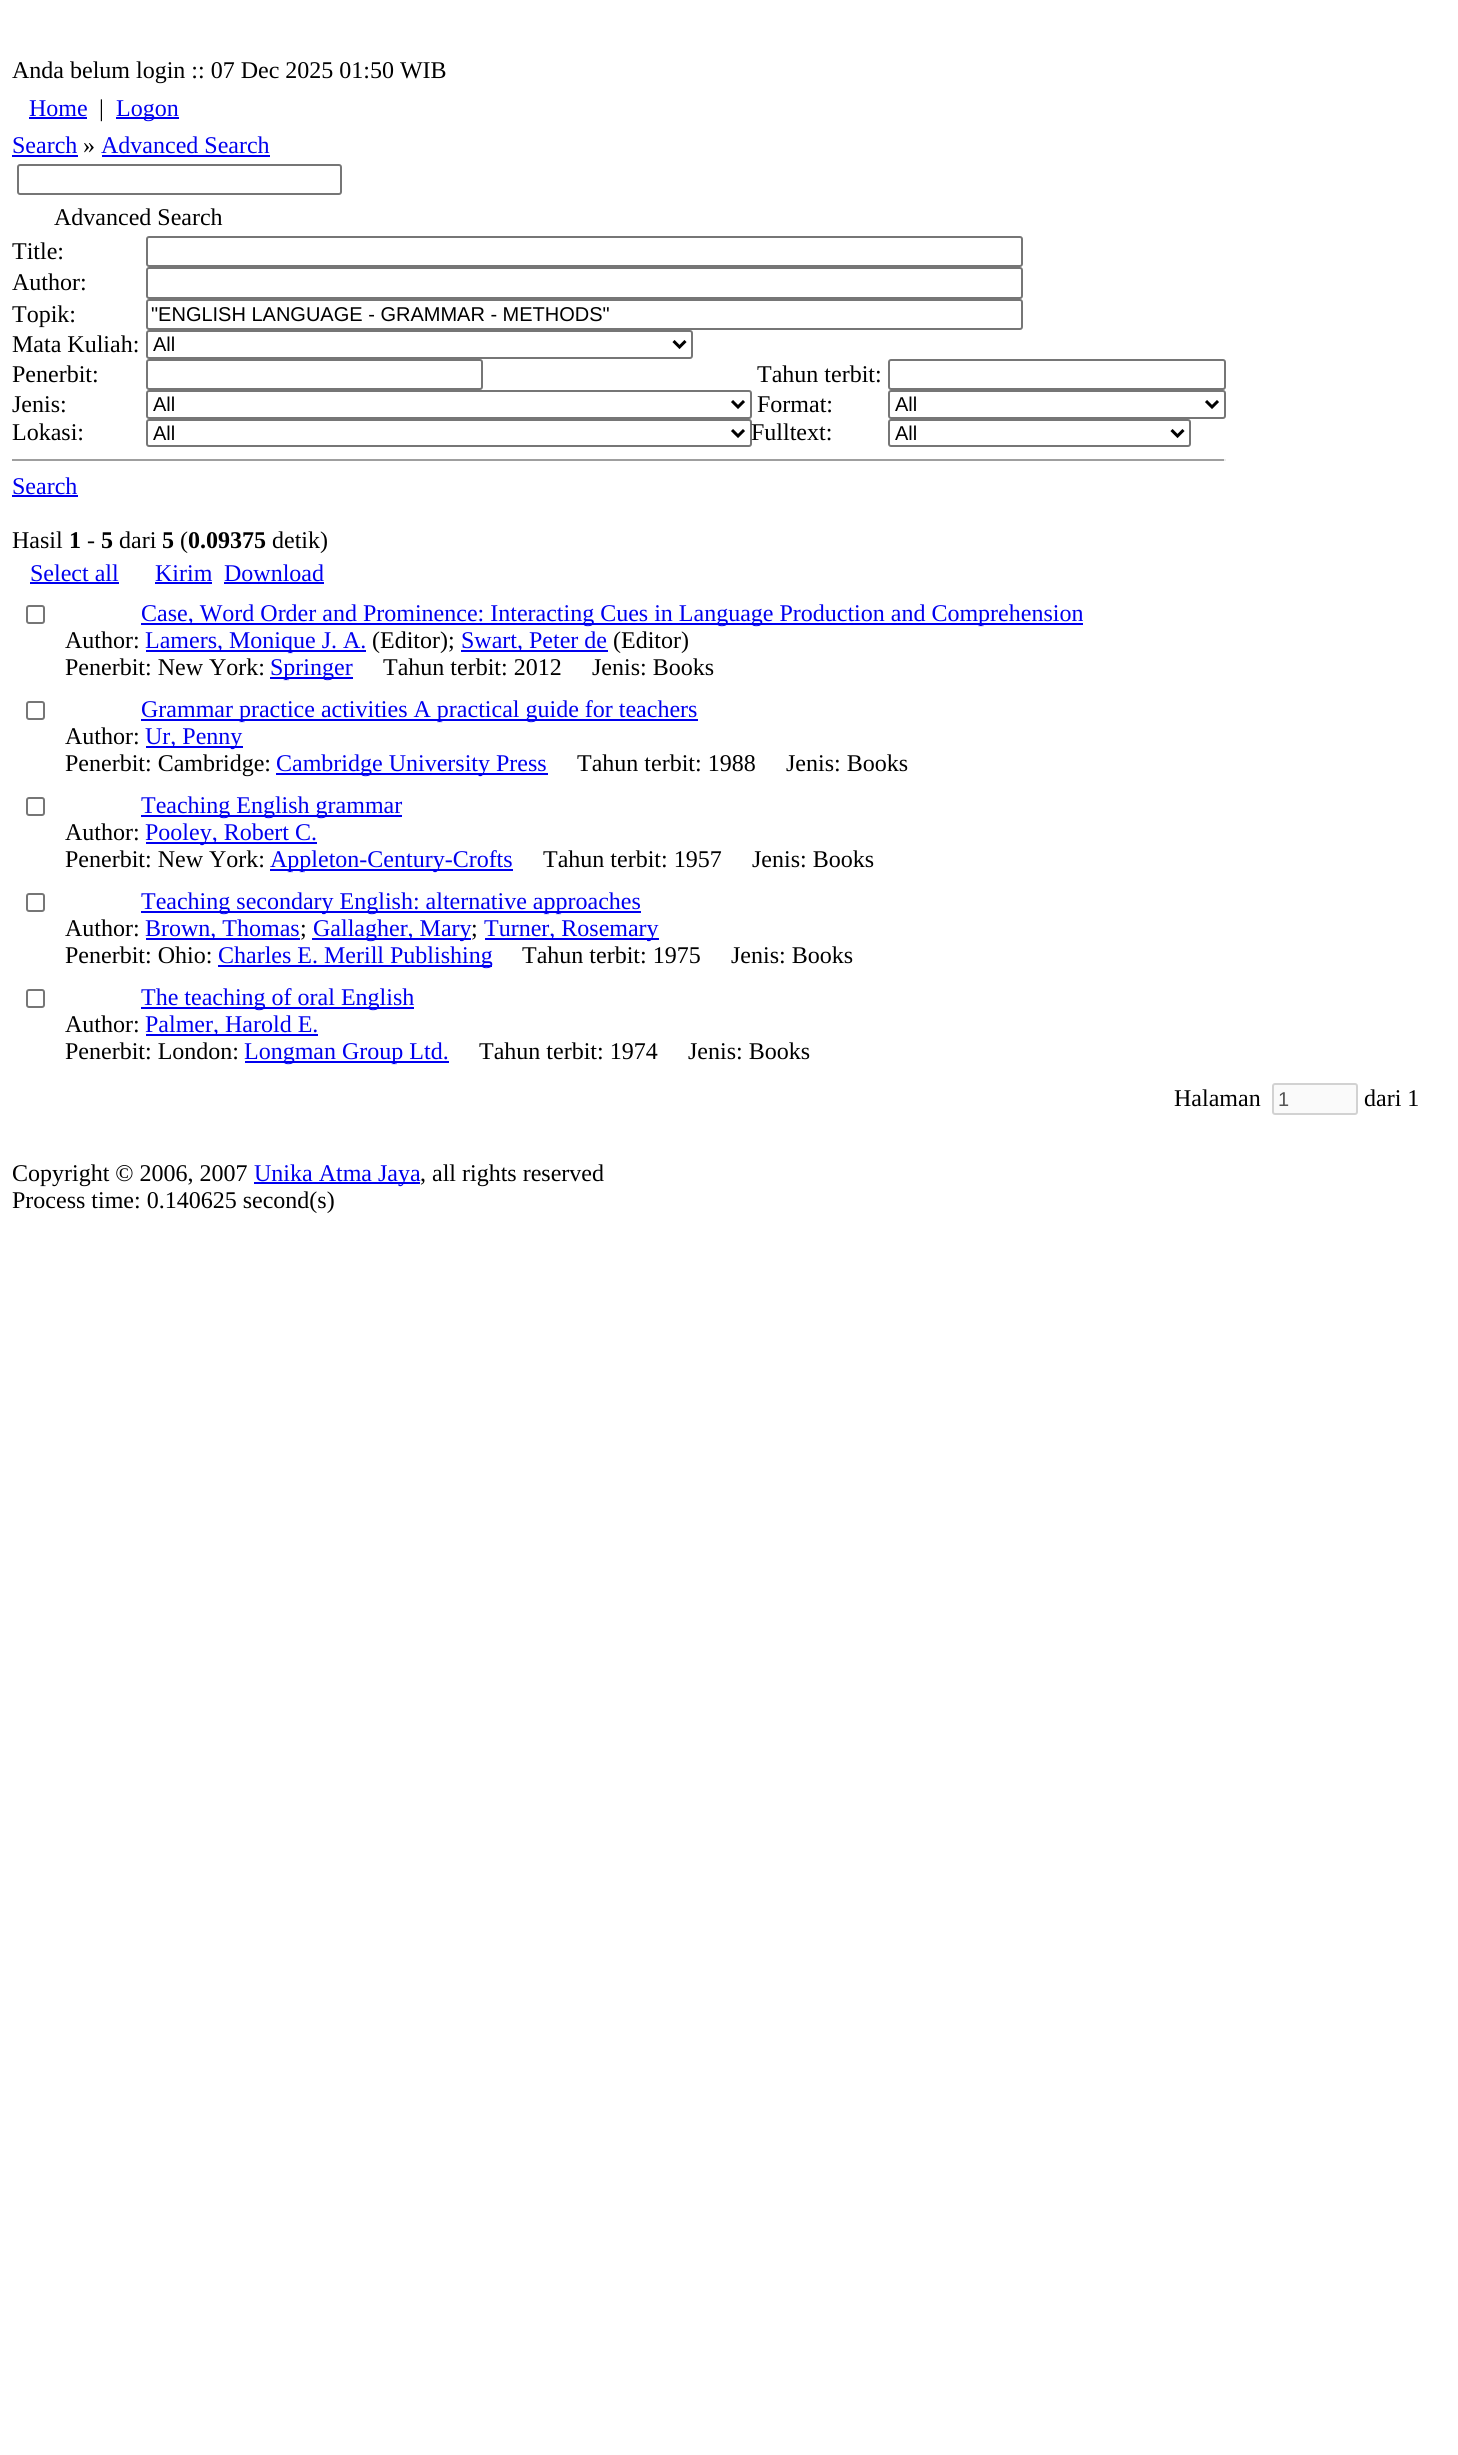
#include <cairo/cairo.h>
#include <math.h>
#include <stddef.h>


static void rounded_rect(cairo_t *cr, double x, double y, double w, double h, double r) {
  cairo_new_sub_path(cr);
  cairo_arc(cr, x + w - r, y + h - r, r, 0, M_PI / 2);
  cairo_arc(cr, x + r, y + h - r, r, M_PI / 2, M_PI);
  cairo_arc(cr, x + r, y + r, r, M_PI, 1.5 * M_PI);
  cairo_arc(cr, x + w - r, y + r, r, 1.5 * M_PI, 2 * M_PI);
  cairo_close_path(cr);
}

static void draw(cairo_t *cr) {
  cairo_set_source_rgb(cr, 1, 1, 1);
  cairo_paint(cr);
  cairo_set_source_rgb(cr, 0, 0, 238 / 255.0);
  cairo_rectangle(cr, 29, 117, 58, 2);
  cairo_fill(cr);
  cairo_rectangle(cr, 116, 117, 63, 2);
  cairo_fill(cr);
  cairo_rectangle(cr, 12, 155, 66, 2);
  cairo_fill(cr);
  cairo_rectangle(cr, 102, 155, 168, 2);
  cairo_fill(cr);
  rounded_rect(cr, 18, 165, 323, 29, 2);
  cairo_set_source_rgb(cr, 118 / 255.0, 118 / 255.0, 118 / 255.0);
  cairo_stroke(cr);
  rounded_rect(cr, 147, 237, 875, 29, 2);
  cairo_stroke(cr);
  rounded_rect(cr, 147, 268, 875, 30, 2);
  cairo_stroke(cr);
  rounded_rect(cr, 147, 300, 875, 29, 2);
  cairo_stroke(cr);
  rounded_rect(cr, 147, 331, 545, 27, 2);
  cairo_stroke(cr);
  cairo_new_path(cr);
  cairo_move_to(cr, 673.5, 341);
  cairo_line_to(cr, 679.5, 347);
  cairo_line_to(cr, 685.5, 341);
  cairo_set_source_rgb(cr, 0, 0, 0);
  cairo_set_line_width(cr, 3);
  cairo_stroke(cr);
  rounded_rect(cr, 147, 360, 335, 29, 2);
  cairo_set_source_rgb(cr, 118 / 255.0, 118 / 255.0, 118 / 255.0);
  cairo_set_line_width(cr, 2);
  cairo_stroke(cr);
  rounded_rect(cr, 889, 360, 336, 29, 2);
  cairo_stroke(cr);
  rounded_rect(cr, 147, 391, 604, 27, 2);
  cairo_stroke(cr);
  cairo_new_path(cr);
  cairo_move_to(cr, 732, 401);
  cairo_line_to(cr, 738, 407);
  cairo_line_to(cr, 744, 401);
  cairo_set_source_rgb(cr, 0, 0, 0);
  cairo_set_line_width(cr, 3);
  cairo_stroke(cr);
  rounded_rect(cr, 889, 391, 336, 27, 2);
  cairo_set_source_rgb(cr, 118 / 255.0, 118 / 255.0, 118 / 255.0);
  cairo_set_line_width(cr, 2);
  cairo_stroke(cr);
  cairo_new_path(cr);
  cairo_move_to(cr, 1206, 401);
  cairo_line_to(cr, 1212, 407);
  cairo_line_to(cr, 1218, 401);
  cairo_set_source_rgb(cr, 0, 0, 0);
  cairo_set_line_width(cr, 3);
  cairo_stroke(cr);
  rounded_rect(cr, 147, 420, 604, 26, 2);
  cairo_set_source_rgb(cr, 118 / 255.0, 118 / 255.0, 118 / 255.0);
  cairo_set_line_width(cr, 2);
  cairo_stroke(cr);
  cairo_new_path(cr);
  cairo_move_to(cr, 732, 430);
  cairo_line_to(cr, 738, 436);
  cairo_line_to(cr, 744, 430);
  cairo_set_source_rgb(cr, 0, 0, 0);
  cairo_set_line_width(cr, 3);
  cairo_stroke(cr);
  rounded_rect(cr, 889, 420, 301, 26, 2);
  cairo_set_source_rgb(cr, 118 / 255.0, 118 / 255.0, 118 / 255.0);
  cairo_set_line_width(cr, 2);
  cairo_stroke(cr);
  cairo_new_path(cr);
  cairo_move_to(cr, 1171.5, 430);
  cairo_line_to(cr, 1177.5, 436);
  cairo_line_to(cr, 1183.5, 430);
  cairo_set_source_rgb(cr, 0, 0, 0);
  cairo_set_line_width(cr, 3);
  cairo_stroke(cr);
  cairo_set_source_rgb(cr, 159 / 255.0, 159 / 255.0, 159 / 255.0);
  cairo_rectangle(cr, 12, 459, 1214, 2);
  cairo_fill(cr);
  cairo_set_source_rgb(cr, 238 / 255.0, 238 / 255.0, 238 / 255.0);
  cairo_rectangle(cr, 1224, 459, 2, 2);
  cairo_fill(cr);
  cairo_set_source_rgb(cr, 0, 0, 238 / 255.0);
  cairo_rectangle(cr, 12, 495, 66, 2);
  cairo_fill(cr);
  cairo_rectangle(cr, 30, 582, 89, 2);
  cairo_fill(cr);
  cairo_rectangle(cr, 155, 582, 57, 2);
  cairo_fill(cr);
  cairo_rectangle(cr, 224, 582, 100, 2);
  cairo_fill(cr);
  rounded_rect(cr, 27, 606, 17, 17, 2);
  cairo_set_source_rgb(cr, 118 / 255.0, 118 / 255.0, 118 / 255.0);
  cairo_set_line_width(cr, 2);
  cairo_stroke(cr);
  cairo_set_source_rgb(cr, 0, 0, 238 / 255.0);
  cairo_rectangle(cr, 141, 623, 942, 2);
  cairo_fill(cr);
  cairo_rectangle(cr, 146, 650, 220, 2);
  cairo_fill(cr);
  cairo_rectangle(cr, 461, 650, 147, 2);
  cairo_fill(cr);
  cairo_rectangle(cr, 270, 677, 83, 2);
  cairo_fill(cr);
  rounded_rect(cr, 27, 702, 17, 17, 2);
  cairo_set_source_rgb(cr, 118 / 255.0, 118 / 255.0, 118 / 255.0);
  cairo_stroke(cr);
  cairo_set_source_rgb(cr, 0, 0, 238 / 255.0);
  cairo_rectangle(cr, 141, 719, 557, 2);
  cairo_fill(cr);
  cairo_rectangle(cr, 146, 746, 97, 2);
  cairo_fill(cr);
  cairo_rectangle(cr, 276, 773, 272, 2);
  cairo_fill(cr);
  rounded_rect(cr, 27, 798, 17, 17, 2);
  cairo_set_source_rgb(cr, 118 / 255.0, 118 / 255.0, 118 / 255.0);
  cairo_stroke(cr);
  cairo_set_source_rgb(cr, 0, 0, 238 / 255.0);
  cairo_rectangle(cr, 141, 815, 261, 2);
  cairo_fill(cr);
  cairo_rectangle(cr, 146, 842, 171, 2);
  cairo_fill(cr);
  cairo_rectangle(cr, 270, 869, 243, 2);
  cairo_fill(cr);
  rounded_rect(cr, 27, 894, 17, 17, 2);
  cairo_set_source_rgb(cr, 118 / 255.0, 118 / 255.0, 118 / 255.0);
  cairo_stroke(cr);
  cairo_set_source_rgb(cr, 0, 0, 238 / 255.0);
  cairo_rectangle(cr, 141, 911, 500, 2);
  cairo_fill(cr);
  cairo_rectangle(cr, 146, 938, 154, 2);
  cairo_fill(cr);
  cairo_rectangle(cr, 312, 938, 159, 2);
  cairo_fill(cr);
  cairo_rectangle(cr, 485, 938, 174, 2);
  cairo_fill(cr);
  cairo_rectangle(cr, 218, 965, 274, 2);
  cairo_fill(cr);
  rounded_rect(cr, 27, 990, 17, 17, 2);
  cairo_set_source_rgb(cr, 118 / 255.0, 118 / 255.0, 118 / 255.0);
  cairo_stroke(cr);
  cairo_set_source_rgb(cr, 0, 0, 238 / 255.0);
  cairo_rectangle(cr, 141, 1007, 273, 2);
  cairo_fill(cr);
  cairo_rectangle(cr, 146, 1034, 172, 2);
  cairo_fill(cr);
  cairo_rectangle(cr, 245, 1061, 204, 2);
  cairo_fill(cr);
  cairo_set_source_rgb(cr, 250 / 255.0, 250 / 255.0, 250 / 255.0);
  rounded_rect(cr, 1273, 1084, 84, 30, 2);
  cairo_fill_preserve(cr);
  cairo_set_source_rgb(cr, 210 / 255.0, 210 / 255.0, 210 / 255.0);
  cairo_stroke(cr);
  cairo_set_source_rgb(cr, 0, 0, 238 / 255.0);
  cairo_rectangle(cr, 254, 1182, 166, 2);
  cairo_fill(cr);
  cairo_select_font_face(cr, "Liberation Serif", CAIRO_FONT_SLANT_NORMAL, CAIRO_FONT_WEIGHT_NORMAL);
  cairo_set_font_size(cr, 24);
  cairo_set_source_rgb(cr, 0, 0, 0);
  cairo_move_to(cr, 12, 78);
  cairo_show_text(cr, "Anda belum login :: 07 Dec 2025 01:50 WIB");
  cairo_set_source_rgb(cr, 0, 0, 238 / 255.0);
  cairo_move_to(cr, 29, 116);
  cairo_show_text(cr, "Home");
  cairo_set_source_rgb(cr, 0, 0, 0);
  cairo_move_to(cr, 99, 116);
  cairo_show_text(cr, "|");
  cairo_set_source_rgb(cr, 0, 0, 238 / 255.0);
  cairo_move_to(cr, 116, 116);
  cairo_show_text(cr, "Logon");
  cairo_move_to(cr, 12, 153);
  cairo_show_text(cr, "Search");
  cairo_set_source_rgb(cr, 0, 0, 0);
  cairo_move_to(cr, 83, 153);
  cairo_show_text(cr, "»");
  cairo_set_source_rgb(cr, 0, 0, 238 / 255.0);
  cairo_move_to(cr, 101, 153);
  cairo_show_text(cr, "Advanced Search");
  cairo_set_source_rgb(cr, 0, 0, 0);
  cairo_move_to(cr, 54, 225);
  cairo_show_text(cr, "Advanced Search");
  cairo_move_to(cr, 12, 259);
  cairo_show_text(cr, "Title:");
  cairo_move_to(cr, 12, 290);
  cairo_show_text(cr, "Author:");
  cairo_move_to(cr, 12, 322);
  cairo_show_text(cr, "Topik:");
  cairo_select_font_face(cr, "Liberation Sans", CAIRO_FONT_SLANT_NORMAL, CAIRO_FONT_WEIGHT_NORMAL);
  cairo_set_font_size(cr, 20);
  cairo_move_to(cr, 151, 321);
  cairo_show_text(cr, "\"ENGLISH LANGUAGE - GRAMMAR - METHODS\"");
  cairo_select_font_face(cr, "Liberation Serif", CAIRO_FONT_SLANT_NORMAL, CAIRO_FONT_WEIGHT_NORMAL);
  cairo_set_font_size(cr, 24);
  cairo_move_to(cr, 12, 352);
  cairo_show_text(cr, "Mata Kuliah:");
  cairo_select_font_face(cr, "Liberation Sans", CAIRO_FONT_SLANT_NORMAL, CAIRO_FONT_WEIGHT_NORMAL);
  cairo_set_font_size(cr, 20);
  cairo_move_to(cr, 153, 351);
  cairo_show_text(cr, "All");
  cairo_select_font_face(cr, "Liberation Serif", CAIRO_FONT_SLANT_NORMAL, CAIRO_FONT_WEIGHT_NORMAL);
  cairo_set_font_size(cr, 24);
  cairo_move_to(cr, 12, 382);
  cairo_show_text(cr, "Penerbit:");
  cairo_move_to(cr, 757, 382);
  cairo_show_text(cr, "Tahun terbit:");
  cairo_move_to(cr, 12, 412);
  cairo_show_text(cr, "Jenis:");
  cairo_select_font_face(cr, "Liberation Sans", CAIRO_FONT_SLANT_NORMAL, CAIRO_FONT_WEIGHT_NORMAL);
  cairo_set_font_size(cr, 20);
  cairo_move_to(cr, 153, 411);
  cairo_show_text(cr, "All");
  cairo_select_font_face(cr, "Liberation Serif", CAIRO_FONT_SLANT_NORMAL, CAIRO_FONT_WEIGHT_NORMAL);
  cairo_set_font_size(cr, 24);
  cairo_move_to(cr, 757, 412);
  cairo_show_text(cr, "Format:");
  cairo_select_font_face(cr, "Liberation Sans", CAIRO_FONT_SLANT_NORMAL, CAIRO_FONT_WEIGHT_NORMAL);
  cairo_set_font_size(cr, 20);
  cairo_move_to(cr, 895, 411);
  cairo_show_text(cr, "All");
  cairo_select_font_face(cr, "Liberation Serif", CAIRO_FONT_SLANT_NORMAL, CAIRO_FONT_WEIGHT_NORMAL);
  cairo_set_font_size(cr, 24);
  cairo_move_to(cr, 12, 440);
  cairo_show_text(cr, "Lokasi:");
  cairo_select_font_face(cr, "Liberation Sans", CAIRO_FONT_SLANT_NORMAL, CAIRO_FONT_WEIGHT_NORMAL);
  cairo_set_font_size(cr, 20);
  cairo_move_to(cr, 153, 440);
  cairo_show_text(cr, "All");
  cairo_select_font_face(cr, "Liberation Serif", CAIRO_FONT_SLANT_NORMAL, CAIRO_FONT_WEIGHT_NORMAL);
  cairo_set_font_size(cr, 24);
  cairo_move_to(cr, 751, 440);
  cairo_show_text(cr, "Fulltext:");
  cairo_select_font_face(cr, "Liberation Sans", CAIRO_FONT_SLANT_NORMAL, CAIRO_FONT_WEIGHT_NORMAL);
  cairo_set_font_size(cr, 20);
  cairo_move_to(cr, 895, 440);
  cairo_show_text(cr, "All");
  cairo_select_font_face(cr, "Liberation Serif", CAIRO_FONT_SLANT_NORMAL, CAIRO_FONT_WEIGHT_NORMAL);
  cairo_set_font_size(cr, 24);
  cairo_set_source_rgb(cr, 0, 0, 238 / 255.0);
  cairo_move_to(cr, 12, 494);
  cairo_show_text(cr, "Search");
  cairo_set_source_rgb(cr, 0, 0, 0);
  cairo_move_to(cr, 12, 548);
  cairo_show_text(cr, "Hasil");
  cairo_select_font_face(cr, "Liberation Serif", CAIRO_FONT_SLANT_NORMAL, CAIRO_FONT_WEIGHT_BOLD);
  cairo_move_to(cr, 69, 548);
  cairo_show_text(cr, "1");
  cairo_select_font_face(cr, "Liberation Serif", CAIRO_FONT_SLANT_NORMAL, CAIRO_FONT_WEIGHT_NORMAL);
  cairo_move_to(cr, 87, 548);
  cairo_show_text(cr, "-");
  cairo_select_font_face(cr, "Liberation Serif", CAIRO_FONT_SLANT_NORMAL, CAIRO_FONT_WEIGHT_BOLD);
  cairo_move_to(cr, 101, 548);
  cairo_show_text(cr, "5");
  cairo_select_font_face(cr, "Liberation Serif", CAIRO_FONT_SLANT_NORMAL, CAIRO_FONT_WEIGHT_NORMAL);
  cairo_move_to(cr, 119, 548);
  cairo_show_text(cr, "dari");
  cairo_select_font_face(cr, "Liberation Serif", CAIRO_FONT_SLANT_NORMAL, CAIRO_FONT_WEIGHT_BOLD);
  cairo_move_to(cr, 162, 548);
  cairo_show_text(cr, "5");
  cairo_select_font_face(cr, "Liberation Serif", CAIRO_FONT_SLANT_NORMAL, CAIRO_FONT_WEIGHT_NORMAL);
  cairo_move_to(cr, 180, 548);
  cairo_show_text(cr, "(");
  cairo_select_font_face(cr, "Liberation Serif", CAIRO_FONT_SLANT_NORMAL, CAIRO_FONT_WEIGHT_BOLD);
  cairo_move_to(cr, 188, 548);
  cairo_show_text(cr, "0.09375");
  cairo_select_font_face(cr, "Liberation Serif", CAIRO_FONT_SLANT_NORMAL, CAIRO_FONT_WEIGHT_NORMAL);
  cairo_move_to(cr, 272, 548);
  cairo_show_text(cr, "detik)");
  cairo_set_source_rgb(cr, 0, 0, 238 / 255.0);
  cairo_move_to(cr, 30, 581);
  cairo_show_text(cr, "Select all");
  cairo_move_to(cr, 155, 581);
  cairo_show_text(cr, "Kirim");
  cairo_move_to(cr, 224, 581);
  cairo_show_text(cr, "Download");
  cairo_move_to(cr, 141, 621);
  cairo_show_text(cr, "Case, Word Order and Prominence: Interacting Cues in Language Production and Comprehension");
  cairo_set_source_rgb(cr, 0, 0, 0);
  cairo_move_to(cr, 65, 648);
  cairo_show_text(cr, "Author:");
  cairo_set_source_rgb(cr, 0, 0, 238 / 255.0);
  cairo_move_to(cr, 145, 648);
  cairo_show_text(cr, "Lamers, Monique J. A.");
  cairo_set_source_rgb(cr, 0, 0, 0);
  cairo_move_to(cr, 372, 648);
  cairo_show_text(cr, "(Editor);");
  cairo_set_source_rgb(cr, 0, 0, 238 / 255.0);
  cairo_move_to(cr, 461, 648);
  cairo_show_text(cr, "Swart, Peter de");
  cairo_set_source_rgb(cr, 0, 0, 0);
  cairo_move_to(cr, 613, 648);
  cairo_show_text(cr, "(Editor)");
  cairo_move_to(cr, 65, 675);
  cairo_show_text(cr, "Penerbit: New York:");
  cairo_set_source_rgb(cr, 0, 0, 238 / 255.0);
  cairo_move_to(cr, 270, 675);
  cairo_show_text(cr, "Springer");
  cairo_set_source_rgb(cr, 0, 0, 0);
  cairo_move_to(cr, 383, 675);
  cairo_show_text(cr, "Tahun terbit: 2012");
  cairo_move_to(cr, 592, 675);
  cairo_show_text(cr, "Jenis: Books");
  cairo_set_source_rgb(cr, 0, 0, 238 / 255.0);
  cairo_move_to(cr, 141, 717);
  cairo_show_text(cr, "Grammar practice activities A practical guide for teachers");
  cairo_set_source_rgb(cr, 0, 0, 0);
  cairo_move_to(cr, 65, 744);
  cairo_show_text(cr, "Author:");
  cairo_set_source_rgb(cr, 0, 0, 238 / 255.0);
  cairo_move_to(cr, 145, 744);
  cairo_show_text(cr, "Ur, Penny");
  cairo_set_source_rgb(cr, 0, 0, 0);
  cairo_move_to(cr, 65, 771);
  cairo_show_text(cr, "Penerbit: Cambridge:");
  cairo_set_source_rgb(cr, 0, 0, 238 / 255.0);
  cairo_move_to(cr, 276, 771);
  cairo_show_text(cr, "Cambridge University Press");
  cairo_set_source_rgb(cr, 0, 0, 0);
  cairo_move_to(cr, 577, 771);
  cairo_show_text(cr, "Tahun terbit: 1988");
  cairo_move_to(cr, 786, 771);
  cairo_show_text(cr, "Jenis: Books");
  cairo_set_source_rgb(cr, 0, 0, 238 / 255.0);
  cairo_move_to(cr, 141, 813);
  cairo_show_text(cr, "Teaching English grammar");
  cairo_set_source_rgb(cr, 0, 0, 0);
  cairo_move_to(cr, 65, 840);
  cairo_show_text(cr, "Author:");
  cairo_set_source_rgb(cr, 0, 0, 238 / 255.0);
  cairo_move_to(cr, 145, 840);
  cairo_show_text(cr, "Pooley, Robert C.");
  cairo_set_source_rgb(cr, 0, 0, 0);
  cairo_move_to(cr, 65, 867);
  cairo_show_text(cr, "Penerbit: New York:");
  cairo_set_source_rgb(cr, 0, 0, 238 / 255.0);
  cairo_move_to(cr, 270, 867);
  cairo_show_text(cr, "Appleton-Century-Crofts");
  cairo_set_source_rgb(cr, 0, 0, 0);
  cairo_move_to(cr, 543, 867);
  cairo_show_text(cr, "Tahun terbit: 1957");
  cairo_move_to(cr, 752, 867);
  cairo_show_text(cr, "Jenis: Books");
  cairo_set_source_rgb(cr, 0, 0, 238 / 255.0);
  cairo_move_to(cr, 141, 909);
  cairo_show_text(cr, "Teaching secondary English: alternative approaches");
  cairo_set_source_rgb(cr, 0, 0, 0);
  cairo_move_to(cr, 65, 936);
  cairo_show_text(cr, "Author:");
  cairo_set_source_rgb(cr, 0, 0, 238 / 255.0);
  cairo_move_to(cr, 145, 936);
  cairo_show_text(cr, "Brown, Thomas");
  cairo_set_source_rgb(cr, 0, 0, 0);
  cairo_move_to(cr, 300, 936);
  cairo_show_text(cr, ";");
  cairo_set_source_rgb(cr, 0, 0, 238 / 255.0);
  cairo_move_to(cr, 313, 936);
  cairo_show_text(cr, "Gallagher, Mary");
  cairo_set_source_rgb(cr, 0, 0, 0);
  cairo_move_to(cr, 471, 936);
  cairo_show_text(cr, ";");
  cairo_set_source_rgb(cr, 0, 0, 238 / 255.0);
  cairo_move_to(cr, 484, 936);
  cairo_show_text(cr, "Turner, Rosemary");
  cairo_set_source_rgb(cr, 0, 0, 0);
  cairo_move_to(cr, 65, 963);
  cairo_show_text(cr, "Penerbit: Ohio:");
  cairo_set_source_rgb(cr, 0, 0, 238 / 255.0);
  cairo_move_to(cr, 218, 963);
  cairo_show_text(cr, "Charles E. Merill Publishing");
  cairo_set_source_rgb(cr, 0, 0, 0);
  cairo_move_to(cr, 522, 963);
  cairo_show_text(cr, "Tahun terbit: 1975");
  cairo_move_to(cr, 731, 963);
  cairo_show_text(cr, "Jenis: Books");
  cairo_set_source_rgb(cr, 0, 0, 238 / 255.0);
  cairo_move_to(cr, 141, 1005);
  cairo_show_text(cr, "The teaching of oral English");
  cairo_set_source_rgb(cr, 0, 0, 0);
  cairo_move_to(cr, 65, 1032);
  cairo_show_text(cr, "Author:");
  cairo_set_source_rgb(cr, 0, 0, 238 / 255.0);
  cairo_move_to(cr, 145, 1032);
  cairo_show_text(cr, "Palmer, Harold E.");
  cairo_set_source_rgb(cr, 0, 0, 0);
  cairo_move_to(cr, 65, 1059);
  cairo_show_text(cr, "Penerbit: London:");
  cairo_set_source_rgb(cr, 0, 0, 238 / 255.0);
  cairo_move_to(cr, 244, 1059);
  cairo_show_text(cr, "Longman Group Ltd.");
  cairo_set_source_rgb(cr, 0, 0, 0);
  cairo_move_to(cr, 479, 1059);
  cairo_show_text(cr, "Tahun terbit: 1974");
  cairo_move_to(cr, 688, 1059);
  cairo_show_text(cr, "Jenis: Books");
  cairo_move_to(cr, 1174, 1106);
  cairo_show_text(cr, "Halaman");
  cairo_select_font_face(cr, "Liberation Sans", CAIRO_FONT_SLANT_NORMAL, CAIRO_FONT_WEIGHT_NORMAL);
  cairo_set_font_size(cr, 20);
  cairo_set_source_rgb(cr, 84 / 255.0, 84 / 255.0, 84 / 255.0);
  cairo_move_to(cr, 1278, 1106);
  cairo_show_text(cr, "1");
  cairo_select_font_face(cr, "Liberation Serif", CAIRO_FONT_SLANT_NORMAL, CAIRO_FONT_WEIGHT_NORMAL);
  cairo_set_font_size(cr, 24);
  cairo_set_source_rgb(cr, 0, 0, 0);
  cairo_move_to(cr, 1364, 1106);
  cairo_show_text(cr, "dari 1");
  cairo_move_to(cr, 12, 1181);
  cairo_show_text(cr, "Copyright © 2006, 2007");
  cairo_set_source_rgb(cr, 0, 0, 238 / 255.0);
  cairo_move_to(cr, 254, 1181);
  cairo_show_text(cr, "Unika Atma Jaya");
  cairo_set_source_rgb(cr, 0, 0, 0);
  cairo_move_to(cr, 420, 1181);
  cairo_show_text(cr, ", all rights reserved");
  cairo_move_to(cr, 12, 1208);
  cairo_show_text(cr, "Process time: 0.140625 second(s)");
}

int main(void) {
  cairo_surface_t *surface = cairo_image_surface_create(CAIRO_FORMAT_RGB24, 1458, 2455);
  cairo_t *cr = cairo_create(surface);
  cairo_font_options_t *options = cairo_font_options_create();
  cairo_font_options_set_hint_metrics(options, CAIRO_HINT_METRICS_OFF);
  cairo_font_options_set_hint_style(options, CAIRO_HINT_STYLE_NONE);
  cairo_set_font_options(cr, options);
  cairo_set_miter_limit(cr, 4);
  draw(cr);
  cairo_surface_write_to_png(surface, "out.png");
  cairo_font_options_destroy(options);
  cairo_destroy(cr);
  cairo_surface_destroy(surface);
  return 0;
}
